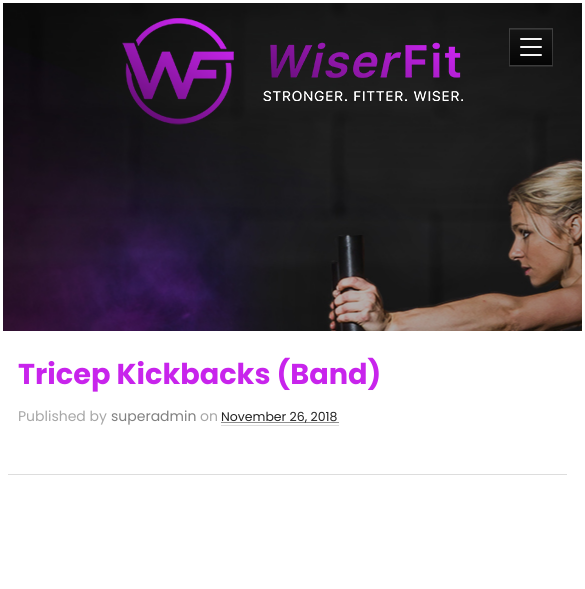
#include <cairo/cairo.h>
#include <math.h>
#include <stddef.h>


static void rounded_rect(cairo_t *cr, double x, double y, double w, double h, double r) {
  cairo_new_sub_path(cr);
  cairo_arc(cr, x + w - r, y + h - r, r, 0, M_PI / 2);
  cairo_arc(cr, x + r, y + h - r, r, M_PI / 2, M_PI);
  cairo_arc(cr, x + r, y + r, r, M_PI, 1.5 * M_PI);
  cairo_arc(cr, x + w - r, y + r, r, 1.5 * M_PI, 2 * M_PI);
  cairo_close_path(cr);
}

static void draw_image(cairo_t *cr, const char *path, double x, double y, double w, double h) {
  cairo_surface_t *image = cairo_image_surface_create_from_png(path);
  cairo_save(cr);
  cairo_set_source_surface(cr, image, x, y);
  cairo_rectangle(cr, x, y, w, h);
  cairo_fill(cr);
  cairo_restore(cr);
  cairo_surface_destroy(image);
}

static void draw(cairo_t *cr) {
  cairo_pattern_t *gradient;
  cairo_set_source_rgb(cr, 1, 1, 1);
  cairo_paint(cr);
  draw_image(cr, "images/1.png", 3, 3, 579, 328);
  draw_image(cr, "images/2.png", 122, 18, 341, 107);
  cairo_set_source_rgb(cr, 42 / 255.0, 42 / 255.0, 42 / 255.0);
  cairo_rectangle(cr, 509, 66, 44, 1);
  cairo_fill(cr);
  cairo_set_source_rgb(cr, 14 / 255.0, 14 / 255.0, 14 / 255.0);
  cairo_rectangle(cr, 509, 28, 44, 38);
  cairo_fill(cr);
  gradient = cairo_pattern_create_linear(531, 29, 531, 65);
  cairo_pattern_add_color_stop_rgba(gradient, 0, 21 / 255.0, 21 / 255.0, 21 / 255.0, 1);
  cairo_pattern_add_color_stop_rgba(gradient, 1, 4 / 255.0, 4 / 255.0, 4 / 255.0, 1);
  cairo_set_source(cr, gradient);
  cairo_pattern_destroy(gradient);
  cairo_rectangle(cr, 509, 29, 44, 36);
  cairo_fill(cr);
  cairo_set_source_rgb(cr, 44 / 255.0, 44 / 255.0, 44 / 255.0);
  cairo_rectangle(cr, 510, 29, 42, 1);
  cairo_fill(cr);
  cairo_rectangle(cr, 509.5, 28.5, 43, 37);
  cairo_set_source_rgba(cr, 1, 1, 1, 0.19);
  cairo_set_line_width(cr, 1);
  cairo_stroke(cr);
  cairo_set_source_rgb(cr, 12 / 255.0, 12 / 255.0, 12 / 255.0);
  cairo_new_path(cr);
  cairo_move_to(cr, 520, 39.5);
  cairo_curve_to(cr, 519, 41.5, 522, 41, 524.5, 41);
  cairo_line_to(cr, 537.5, 41);
  cairo_curve_to(cr, 540, 41, 543, 41.5, 542, 39.5);
  cairo_line_to(cr, 541, 40);
  cairo_line_to(cr, 521, 40);
  cairo_close_path(cr);
  cairo_fill(cr);
  cairo_set_source_rgb(cr, 245 / 255.0, 245 / 255.0, 245 / 255.0);
  rounded_rect(cr, 520, 38, 22, 2, 1);
  cairo_fill(cr);
  cairo_set_source_rgb(cr, 9 / 255.0, 9 / 255.0, 9 / 255.0);
  cairo_new_path(cr);
  cairo_move_to(cr, 520, 47.5);
  cairo_curve_to(cr, 519, 49.5, 522, 49, 524.5, 49);
  cairo_line_to(cr, 537.5, 49);
  cairo_curve_to(cr, 540, 49, 543, 49.5, 542, 47.5);
  cairo_line_to(cr, 541, 48);
  cairo_line_to(cr, 521, 48);
  cairo_close_path(cr);
  cairo_fill(cr);
  cairo_set_source_rgb(cr, 245 / 255.0, 245 / 255.0, 245 / 255.0);
  rounded_rect(cr, 520, 46, 22, 2, 1);
  cairo_fill(cr);
  rounded_rect(cr, 520, 54, 22, 2, 1);
  cairo_fill(cr);
  cairo_set_source_rgb(cr, 221 / 255.0, 221 / 255.0, 221 / 255.0);
  cairo_rectangle(cr, 221, 425, 118, 1);
  cairo_fill(cr);
  cairo_new_path(cr);
  cairo_move_to(cr, 221.5, 422.5);
  cairo_line_to(cr, 339, 422.5);
  cairo_set_source_rgb(cr, 34 / 255.0, 34 / 255.0, 34 / 255.0);
  cairo_set_dash(cr, (double[]){1, 1}, 2, 0);
  cairo_stroke(cr);
  cairo_set_source_rgb(cr, 221 / 255.0, 221 / 255.0, 221 / 255.0);
  cairo_rectangle(cr, 8, 474, 559, 1);
  cairo_fill(cr);
  cairo_select_font_face(cr, "Poppins", CAIRO_FONT_SLANT_NORMAL, CAIRO_FONT_WEIGHT_BOLD);
  cairo_set_font_size(cr, 28.75);
  cairo_set_source_rgb(cr, 200 / 255.0, 36 / 255.0, 236 / 255.0);
  cairo_move_to(cr, 18, 384);
  cairo_show_text(cr, "Tricep Kickbacks (Band)");
  cairo_select_font_face(cr, "Poppins", CAIRO_FONT_SLANT_NORMAL, CAIRO_FONT_WEIGHT_NORMAL);
  cairo_set_font_size(cr, 14);
  cairo_set_source_rgb(cr, 167 / 255.0, 167 / 255.0, 167 / 255.0);
  cairo_move_to(cr, 18, 421);
  cairo_show_text(cr, "Published by");
  cairo_set_source_rgb(cr, 128 / 255.0, 128 / 255.0, 128 / 255.0);
  cairo_move_to(cr, 111, 421);
  cairo_show_text(cr, "superadmin");
  cairo_set_source_rgb(cr, 167 / 255.0, 167 / 255.0, 167 / 255.0);
  cairo_move_to(cr, 200, 421);
  cairo_show_text(cr, "on");
  cairo_set_font_size(cr, 12.5);
  cairo_set_source_rgb(cr, 34 / 255.0, 34 / 255.0, 34 / 255.0);
  cairo_move_to(cr, 221, 421);
  cairo_show_text(cr, "November 26, 2018");
}

int main(void) {
  cairo_surface_t *surface = cairo_image_surface_create(CAIRO_FORMAT_RGB24, 585, 589);
  cairo_t *cr = cairo_create(surface);
  cairo_font_options_t *options = cairo_font_options_create();
  cairo_font_options_set_hint_metrics(options, CAIRO_HINT_METRICS_OFF);
  cairo_font_options_set_hint_style(options, CAIRO_HINT_STYLE_NONE);
  cairo_set_font_options(cr, options);
  cairo_set_miter_limit(cr, 4);
  draw(cr);
  cairo_surface_write_to_png(surface, "out.png");
  cairo_font_options_destroy(options);
  cairo_destroy(cr);
  cairo_surface_destroy(surface);
  return 0;
}
